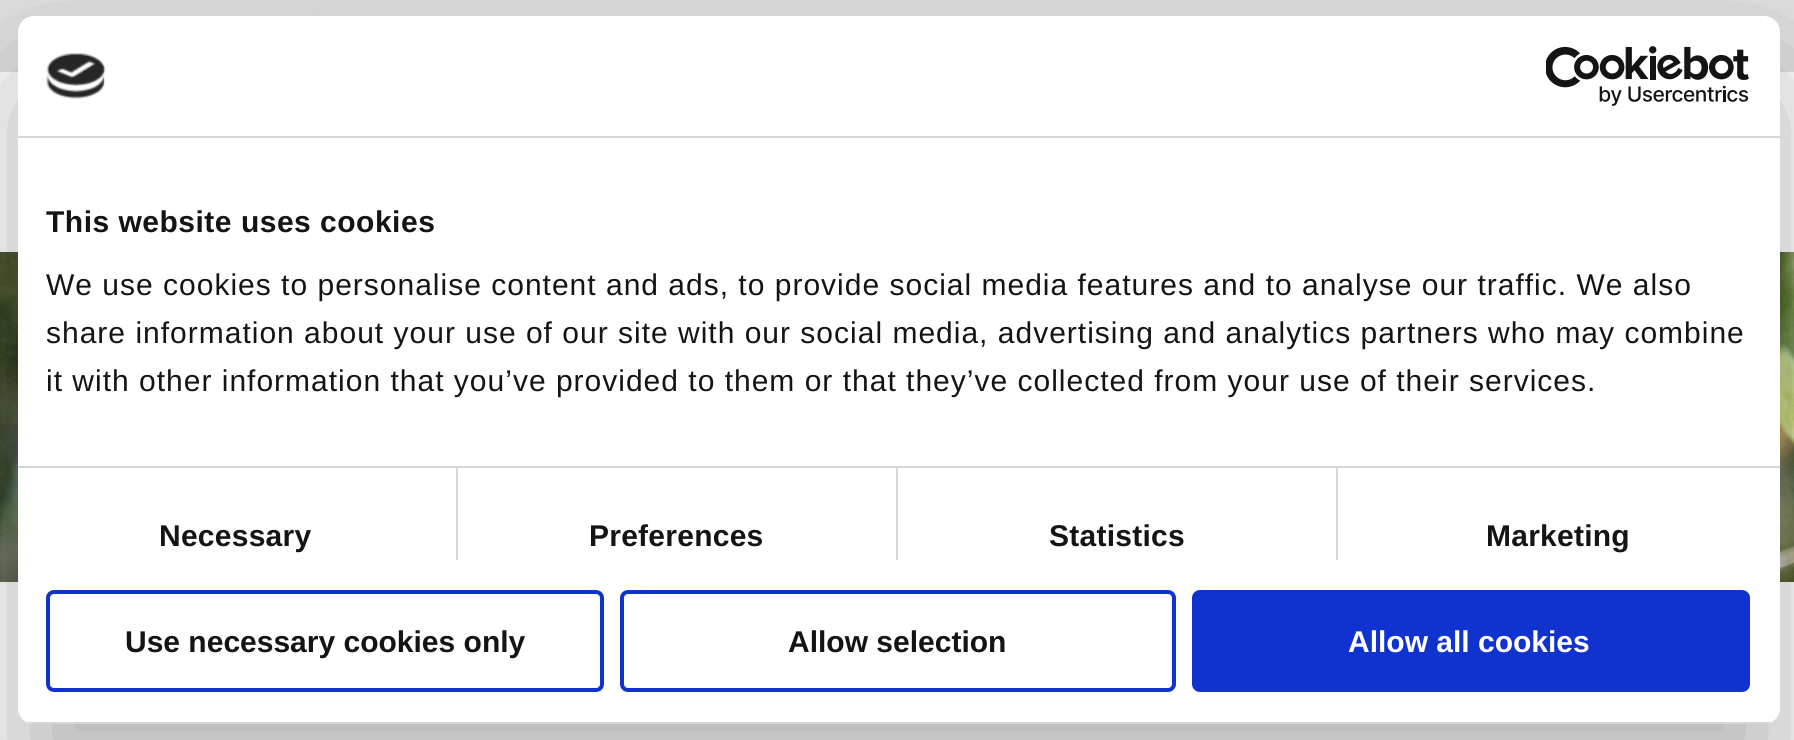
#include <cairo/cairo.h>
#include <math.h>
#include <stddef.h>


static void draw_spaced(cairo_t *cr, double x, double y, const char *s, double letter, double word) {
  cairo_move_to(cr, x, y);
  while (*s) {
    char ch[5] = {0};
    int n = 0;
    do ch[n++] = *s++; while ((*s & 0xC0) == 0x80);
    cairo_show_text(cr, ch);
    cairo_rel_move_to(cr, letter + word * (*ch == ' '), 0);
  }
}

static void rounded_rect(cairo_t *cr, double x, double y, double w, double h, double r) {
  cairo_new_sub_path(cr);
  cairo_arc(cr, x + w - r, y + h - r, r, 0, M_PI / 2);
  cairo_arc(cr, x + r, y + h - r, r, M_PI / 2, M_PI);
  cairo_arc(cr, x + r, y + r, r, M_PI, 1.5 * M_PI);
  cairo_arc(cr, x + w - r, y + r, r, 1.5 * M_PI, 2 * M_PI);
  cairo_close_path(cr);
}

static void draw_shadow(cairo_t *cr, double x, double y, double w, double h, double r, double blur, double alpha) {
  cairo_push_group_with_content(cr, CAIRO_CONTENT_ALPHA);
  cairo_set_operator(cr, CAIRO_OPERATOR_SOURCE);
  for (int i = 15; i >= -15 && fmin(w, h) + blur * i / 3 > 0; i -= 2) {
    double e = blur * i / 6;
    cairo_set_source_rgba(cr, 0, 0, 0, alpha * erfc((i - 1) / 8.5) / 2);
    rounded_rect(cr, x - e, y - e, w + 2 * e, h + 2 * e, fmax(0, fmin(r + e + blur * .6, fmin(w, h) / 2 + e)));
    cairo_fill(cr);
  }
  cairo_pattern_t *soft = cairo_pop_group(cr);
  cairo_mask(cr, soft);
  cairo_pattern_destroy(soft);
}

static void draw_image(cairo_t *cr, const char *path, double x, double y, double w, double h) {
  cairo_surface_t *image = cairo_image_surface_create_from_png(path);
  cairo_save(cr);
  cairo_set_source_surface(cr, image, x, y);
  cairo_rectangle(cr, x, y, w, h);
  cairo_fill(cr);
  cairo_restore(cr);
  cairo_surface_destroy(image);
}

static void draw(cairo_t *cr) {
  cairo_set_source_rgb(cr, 1, 1, 1);
  cairo_paint(cr);
  cairo_set_source_rgb(cr, 224 / 255.0, 224 / 255.0, 224 / 255.0);
  cairo_rectangle(cr, 0, 0, 1794, 72);
  cairo_fill(cr);
  draw_image(cr, "images/1.png", 303, 15, 21, 1);
  draw_image(cr, "images/2.png", 0, 252, 1794, 330);
  cairo_set_source_rgb(cr, 0, 0, 0);
  draw_shadow(cr, 18, 80, 1762, 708, 16, 68, 0.3);
  cairo_set_source_rgb(cr, 1, 1, 1);
  rounded_rect(cr, 18, 16, 1762, 708, 16);
  cairo_fill(cr);
  cairo_set_source_rgb(cr, 214 / 255.0, 214 / 255.0, 214 / 255.0);
  cairo_rectangle(cr, 18, 136, 1762, 2);
  cairo_fill(cr);
  draw_image(cr, "images/3.png", 46, 53, 60, 46);
  draw_image(cr, "images/4.png", 1546, 46, 203, 60);
  cairo_rectangle(cr, 18, 466, 1762, 2);
  cairo_fill(cr);
  cairo_rectangle(cr, 456, 468, 2, 92);
  cairo_fill(cr);
  cairo_rectangle(cr, 896, 468, 2, 92);
  cairo_fill(cr);
  cairo_rectangle(cr, 1336, 468, 2, 92);
  cairo_fill(cr);
  cairo_save(cr);
  rounded_rect(cr, 18, 16, 1762, 708, 16);
  cairo_clip(cr);
  cairo_rectangle(cr, 18, 722, 1762, 2);
  cairo_fill(cr);
  cairo_restore(cr);
  rounded_rect(cr, 48, 592, 554, 98, 6);
  cairo_set_source_rgb(cr, 16 / 255.0, 50 / 255.0, 207 / 255.0);
  cairo_set_line_width(cr, 4);
  cairo_stroke(cr);
  rounded_rect(cr, 622, 592, 552, 98, 6);
  cairo_stroke(cr);
  rounded_rect(cr, 1194, 592, 554, 98, 6);
  cairo_fill_preserve(cr);
  cairo_stroke(cr);
  cairo_select_font_face(cr, "Liberation Sans", CAIRO_FONT_SLANT_NORMAL, CAIRO_FONT_WEIGHT_BOLD);
  cairo_set_font_size(cr, 30);
  cairo_set_source_rgb(cr, 20 / 255.0, 20 / 255.0, 20 / 255.0);
  draw_spaced(cr, 46, 232, "This website uses cookies", 0.5, 0);
  cairo_select_font_face(cr, "Liberation Sans", CAIRO_FONT_SLANT_NORMAL, CAIRO_FONT_WEIGHT_NORMAL);
  draw_spaced(cr, 46, 295, "We use cookies to personalise content and ads, to provide social media features and to analyse our traffic. We also", 1, 0);
  draw_spaced(cr, 46, 343, "share information about your use of our site with our social media, advertising and analytics partners who may combine", 1, 0);
  draw_spaced(cr, 46, 391, "it with other information that you’ve provided to them or that they’ve collected from your use of their services.", 1, 0);
  cairo_select_font_face(cr, "Liberation Sans", CAIRO_FONT_SLANT_NORMAL, CAIRO_FONT_WEIGHT_BOLD);
  draw_spaced(cr, 159, 546, "Necessary", 0.25, 0);
  draw_spaced(cr, 589, 546, "Preferences", 0.25, 0);
  draw_spaced(cr, 1049, 546, "Statistics", 0.25, 0);
  draw_spaced(cr, 1486, 546, "Marketing", 0.25, 0);
  cairo_move_to(cr, 125, 652);
  cairo_show_text(cr, "Use necessary cookies only");
  cairo_move_to(cr, 788, 652);
  cairo_show_text(cr, "Allow selection");
  cairo_set_source_rgb(cr, 1, 1, 1);
  cairo_move_to(cr, 1348, 652);
  cairo_show_text(cr, "Allow all cookies");
}

int main(void) {
  cairo_surface_t *surface = cairo_image_surface_create(CAIRO_FORMAT_RGB24, 1794, 740);
  cairo_t *cr = cairo_create(surface);
  cairo_font_options_t *options = cairo_font_options_create();
  cairo_font_options_set_hint_metrics(options, CAIRO_HINT_METRICS_OFF);
  cairo_font_options_set_hint_style(options, CAIRO_HINT_STYLE_NONE);
  cairo_set_font_options(cr, options);
  cairo_set_miter_limit(cr, 4);
  draw(cr);
  cairo_surface_write_to_png(surface, "out.png");
  cairo_font_options_destroy(options);
  cairo_destroy(cr);
  cairo_surface_destroy(surface);
  return 0;
}
